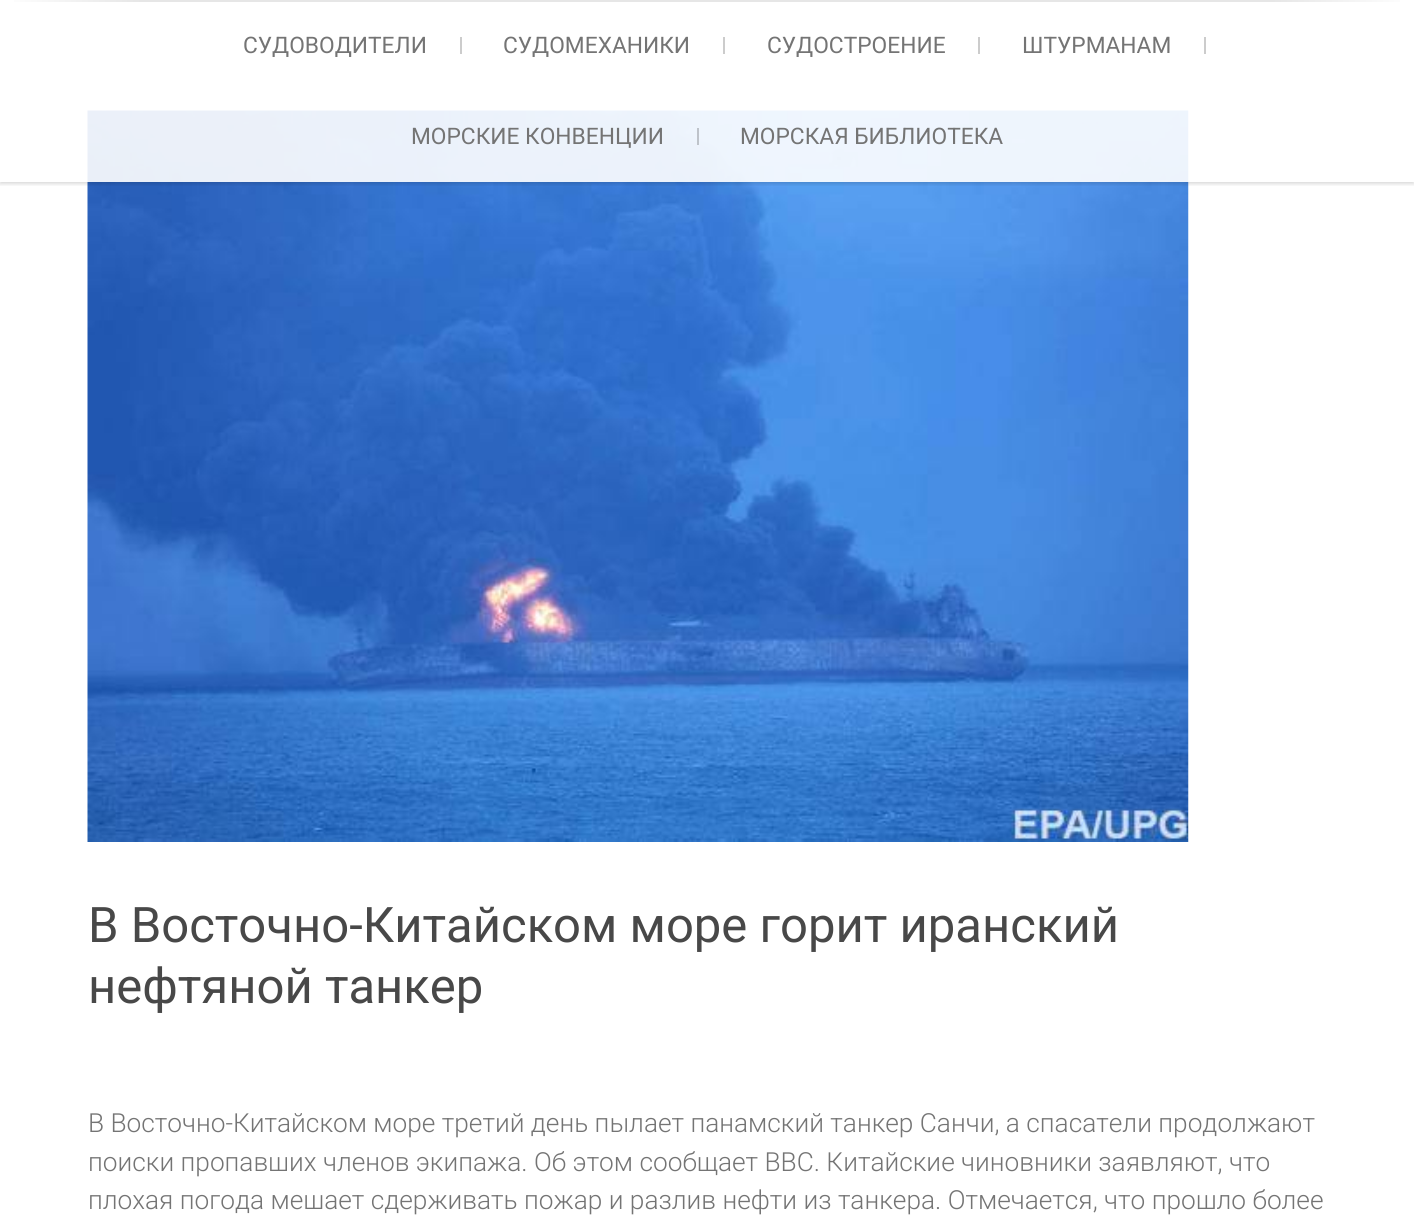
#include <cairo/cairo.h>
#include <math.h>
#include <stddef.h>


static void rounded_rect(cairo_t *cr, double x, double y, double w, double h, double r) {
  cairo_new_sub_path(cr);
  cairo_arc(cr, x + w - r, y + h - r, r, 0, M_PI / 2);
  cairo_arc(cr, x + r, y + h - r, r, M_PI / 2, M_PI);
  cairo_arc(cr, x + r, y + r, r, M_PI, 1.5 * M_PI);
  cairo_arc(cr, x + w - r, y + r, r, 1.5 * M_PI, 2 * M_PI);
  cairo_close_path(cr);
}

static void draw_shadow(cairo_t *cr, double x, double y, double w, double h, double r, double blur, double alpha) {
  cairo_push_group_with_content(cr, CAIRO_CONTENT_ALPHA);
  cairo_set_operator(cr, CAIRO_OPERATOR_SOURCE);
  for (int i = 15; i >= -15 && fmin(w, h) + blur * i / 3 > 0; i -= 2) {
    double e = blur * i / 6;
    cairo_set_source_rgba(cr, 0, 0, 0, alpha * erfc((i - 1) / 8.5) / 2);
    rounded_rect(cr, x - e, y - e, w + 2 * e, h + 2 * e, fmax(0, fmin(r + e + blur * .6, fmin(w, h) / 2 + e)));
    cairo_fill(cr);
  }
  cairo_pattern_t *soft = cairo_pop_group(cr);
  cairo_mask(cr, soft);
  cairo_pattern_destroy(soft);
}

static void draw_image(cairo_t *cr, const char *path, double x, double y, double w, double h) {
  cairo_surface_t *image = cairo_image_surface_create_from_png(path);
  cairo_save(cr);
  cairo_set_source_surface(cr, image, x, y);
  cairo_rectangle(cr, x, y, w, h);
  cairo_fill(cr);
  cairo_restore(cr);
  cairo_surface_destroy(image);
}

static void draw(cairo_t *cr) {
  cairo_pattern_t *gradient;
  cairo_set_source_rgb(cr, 1, 1, 1);
  cairo_paint(cr);
  draw_image(cr, "images/1.png", 87, 110, 1102, 732);
  cairo_save(cr);
  cairo_rectangle(cr, 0, 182, 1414, 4);
  cairo_clip(cr);
  cairo_set_source_rgb(cr, 0, 0, 0);
  draw_shadow(cr, 0, 2, 1414, 182, 0, 2, 0.15);
  cairo_restore(cr);
  cairo_set_source_rgba(cr, 1, 1, 1, 0.9);
  cairo_rectangle(cr, 87, 110, 1102, 72);
  cairo_fill(cr);
  gradient = cairo_pattern_create_linear(0, 0.9, 1414, 0.9);
  cairo_pattern_add_color_stop_rgba(gradient, 0, 1, 1, 1, 1);
  cairo_pattern_add_color_stop_rgba(gradient, 0.1, 230 / 255.0, 230 / 255.0, 230 / 255.0, 1);
  cairo_pattern_add_color_stop_rgba(gradient, 0.9, 230 / 255.0, 230 / 255.0, 230 / 255.0, 1);
  cairo_pattern_add_color_stop_rgba(gradient, 1, 1, 1, 1, 1);
  cairo_set_source(cr, gradient);
  cairo_pattern_destroy(gradient);
  cairo_rectangle(cr, 14, 0, 1386, 2);
  cairo_fill(cr);
  cairo_set_source_rgb(cr, 204 / 255.0, 204 / 255.0, 204 / 255.0);
  cairo_rectangle(cr, 460, 37, 2, 17);
  cairo_fill(cr);
  cairo_rectangle(cr, 723, 37, 2, 17);
  cairo_fill(cr);
  cairo_rectangle(cr, 978, 37, 2, 17);
  cairo_fill(cr);
  cairo_rectangle(cr, 1204, 37, 2, 17);
  cairo_fill(cr);
  cairo_set_source_rgb(cr, 190 / 255.0, 195 / 255.0, 202 / 255.0);
  cairo_rectangle(cr, 697, 128, 2, 17);
  cairo_fill(cr);
  cairo_select_font_face(cr, "Roboto", CAIRO_FONT_SLANT_NORMAL, CAIRO_FONT_WEIGHT_NORMAL);
  cairo_set_font_size(cr, 22.75);
  cairo_set_source_rgb(cr, 116 / 255.0, 116 / 255.0, 116 / 255.0);
  cairo_move_to(cr, 243, 53);
  cairo_show_text(cr, "СУДОВОДИТЕЛИ");
  cairo_move_to(cr, 503, 53);
  cairo_show_text(cr, "СУДОМЕХАНИКИ");
  cairo_move_to(cr, 767, 53);
  cairo_show_text(cr, "СУДОСТРОЕНИЕ");
  cairo_move_to(cr, 1022, 53);
  cairo_show_text(cr, "ШТУРМАНАМ");
  cairo_move_to(cr, 411, 144);
  cairo_show_text(cr, "МОРСКИЕ КОНВЕНЦИИ");
  cairo_move_to(cr, 740, 144);
  cairo_show_text(cr, "МОРСКАЯ БИБЛИОТЕКА");
  cairo_set_font_size(cr, 49);
  cairo_set_source_rgb(cr, 72 / 255.0, 72 / 255.0, 72 / 255.0);
  cairo_move_to(cr, 88, 942);
  cairo_show_text(cr, "В Восточно-Китайском море горит иранский");
  cairo_move_to(cr, 88, 1003);
  cairo_show_text(cr, "нефтяной танкер");
  cairo_select_font_face(cr, "Roboto Light", CAIRO_FONT_SLANT_NORMAL, CAIRO_FONT_WEIGHT_NORMAL);
  cairo_set_font_size(cr, 26.25);
  cairo_set_source_rgb(cr, 116 / 255.0, 116 / 255.0, 116 / 255.0);
  cairo_move_to(cr, 88, 1132);
  cairo_show_text(cr, "В Восточно-Китайском море третий день пылает панамский танкер Санчи, а спасатели продолжают");
  cairo_move_to(cr, 88, 1171);
  cairo_show_text(cr, "поиски пропавших членов экипажа. Об этом сообщает BBC. Китайские чиновники заявляют, что");
  cairo_move_to(cr, 88, 1209);
  cairo_show_text(cr, "плохая погода мешает сдерживать пожар и разлив нефти из танкера. Отмечается, что прошло более");
}

int main(void) {
  cairo_surface_t *surface = cairo_image_surface_create(CAIRO_FORMAT_RGB24, 1414, 1220);
  cairo_t *cr = cairo_create(surface);
  cairo_font_options_t *options = cairo_font_options_create();
  cairo_font_options_set_hint_metrics(options, CAIRO_HINT_METRICS_OFF);
  cairo_font_options_set_hint_style(options, CAIRO_HINT_STYLE_NONE);
  cairo_set_font_options(cr, options);
  cairo_set_miter_limit(cr, 4);
  draw(cr);
  cairo_surface_write_to_png(surface, "out.png");
  cairo_font_options_destroy(options);
  cairo_destroy(cr);
  cairo_surface_destroy(surface);
  return 0;
}
